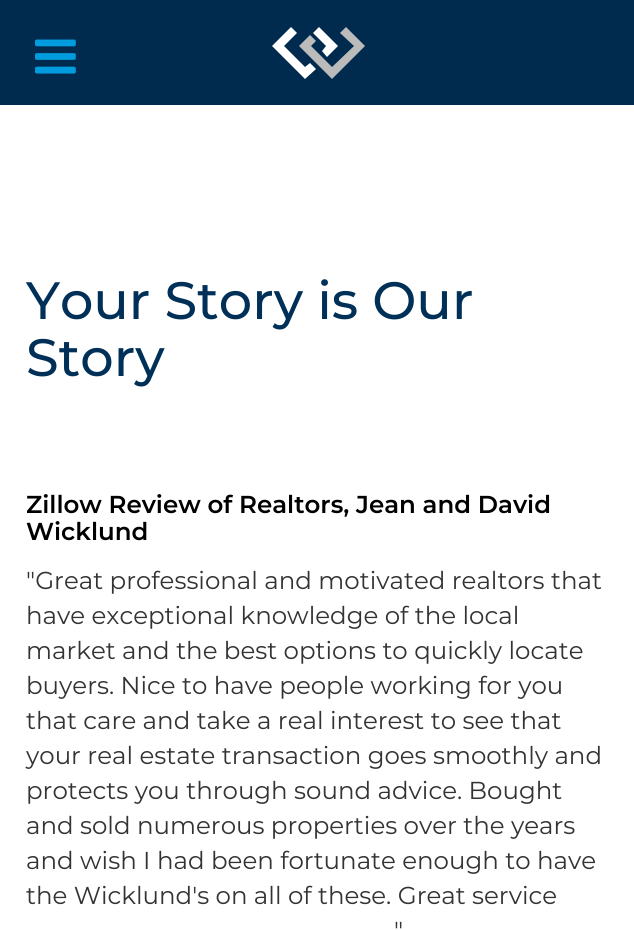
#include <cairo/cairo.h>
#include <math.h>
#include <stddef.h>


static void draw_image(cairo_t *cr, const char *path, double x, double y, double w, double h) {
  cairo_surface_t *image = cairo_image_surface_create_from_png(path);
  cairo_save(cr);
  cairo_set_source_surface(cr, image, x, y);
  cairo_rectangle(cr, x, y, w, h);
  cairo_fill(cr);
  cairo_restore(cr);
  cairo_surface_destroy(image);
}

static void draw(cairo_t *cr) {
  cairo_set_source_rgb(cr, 1, 1, 1);
  cairo_paint(cr);
  cairo_set_source_rgb(cr, 0, 42 / 255.0, 78 / 255.0);
  cairo_rectangle(cr, 0, 0, 634, 105);
  cairo_fill(cr);
  draw_image(cr, "images/1.png", 35, 39, 41, 35);
  cairo_set_source_rgb(cr, 187 / 255.0, 187 / 255.0, 187 / 255.0);
  cairo_new_path(cr);
  cairo_move_to(cr, 365, 46);
  cairo_line_to(cr, 332, 79);
  cairo_line_to(cr, 299, 46);
  cairo_line_to(cr, 310, 35);
  cairo_line_to(cr, 316, 41);
  cairo_line_to(cr, 311, 46);
  cairo_line_to(cr, 332, 67);
  cairo_line_to(cr, 354, 46);
  cairo_line_to(cr, 340, 33);
  cairo_line_to(cr, 346, 27);
  cairo_close_path(cr);
  cairo_fill(cr);
  cairo_set_source_rgb(cr, 1, 1, 1);
  cairo_new_path(cr);
  cairo_move_to(cr, 319, 27);
  cairo_line_to(cr, 313, 33);
  cairo_line_to(cr, 326, 46);
  cairo_line_to(cr, 322, 51);
  cairo_line_to(cr, 327, 57);
  cairo_line_to(cr, 338, 46);
  cairo_close_path(cr);
  cairo_move_to(cr, 310, 63);
  cairo_line_to(cr, 316, 69);
  cairo_line_to(cr, 305, 79);
  cairo_line_to(cr, 272, 46);
  cairo_line_to(cr, 291, 27);
  cairo_line_to(cr, 297, 33);
  cairo_line_to(cr, 284, 46);
  cairo_line_to(cr, 305, 67);
  cairo_close_path(cr);
  cairo_fill(cr);
  cairo_select_font_face(cr, "Montserrat Medium", CAIRO_FONT_SLANT_NORMAL, CAIRO_FONT_WEIGHT_NORMAL);
  cairo_set_font_size(cr, 52.5);
  cairo_set_source_rgb(cr, 0, 48 / 255.0, 87 / 255.0);
  cairo_move_to(cr, 26, 319);
  cairo_show_text(cr, "Your Story is Our");
  cairo_move_to(cr, 26, 376);
  cairo_show_text(cr, "Story");
  cairo_select_font_face(cr, "Montserrat SemiBold", CAIRO_FONT_SLANT_NORMAL, CAIRO_FONT_WEIGHT_NORMAL);
  cairo_set_font_size(cr, 24.5);
  cairo_set_source_rgb(cr, 0, 0, 0);
  cairo_move_to(cr, 26, 513);
  cairo_show_text(cr, "Zillow Review of Realtors, Jean and David");
  cairo_move_to(cr, 26, 540);
  cairo_show_text(cr, "Wicklund");
  cairo_select_font_face(cr, "Montserrat", CAIRO_FONT_SLANT_NORMAL, CAIRO_FONT_WEIGHT_NORMAL);
  cairo_set_source_rgb(cr, 51 / 255.0, 51 / 255.0, 51 / 255.0);
  cairo_move_to(cr, 26, 589);
  cairo_show_text(cr, "\"Great professional and motivated realtors that");
  cairo_move_to(cr, 26, 624);
  cairo_show_text(cr, "have exceptional knowledge of the local");
  cairo_move_to(cr, 26, 659);
  cairo_show_text(cr, "market and the best options to quickly locate");
  cairo_move_to(cr, 26, 694);
  cairo_show_text(cr, "buyers. Nice to have people working for you");
  cairo_move_to(cr, 26, 729);
  cairo_show_text(cr, "that care and take a real interest to see that");
  cairo_move_to(cr, 26, 764);
  cairo_show_text(cr, "your real estate transaction goes smoothly and");
  cairo_move_to(cr, 26, 799);
  cairo_show_text(cr, "protects you through sound advice. Bought");
  cairo_move_to(cr, 26, 834);
  cairo_show_text(cr, "and sold numerous properties over the years");
  cairo_move_to(cr, 26, 869);
  cairo_show_text(cr, "and wish I had been fortunate enough to have");
  cairo_move_to(cr, 26, 904);
  cairo_show_text(cr, "the Wicklund's on all of these. Great service");
  cairo_move_to(cr, 394, 939);
  cairo_show_text(cr, "\"");
}

int main(void) {
  cairo_surface_t *surface = cairo_image_surface_create(CAIRO_FORMAT_RGB24, 634, 930);
  cairo_t *cr = cairo_create(surface);
  cairo_font_options_t *options = cairo_font_options_create();
  cairo_font_options_set_hint_metrics(options, CAIRO_HINT_METRICS_OFF);
  cairo_font_options_set_hint_style(options, CAIRO_HINT_STYLE_NONE);
  cairo_set_font_options(cr, options);
  cairo_set_miter_limit(cr, 4);
  draw(cr);
  cairo_surface_write_to_png(surface, "out.png");
  cairo_font_options_destroy(options);
  cairo_destroy(cr);
  cairo_surface_destroy(surface);
  return 0;
}
